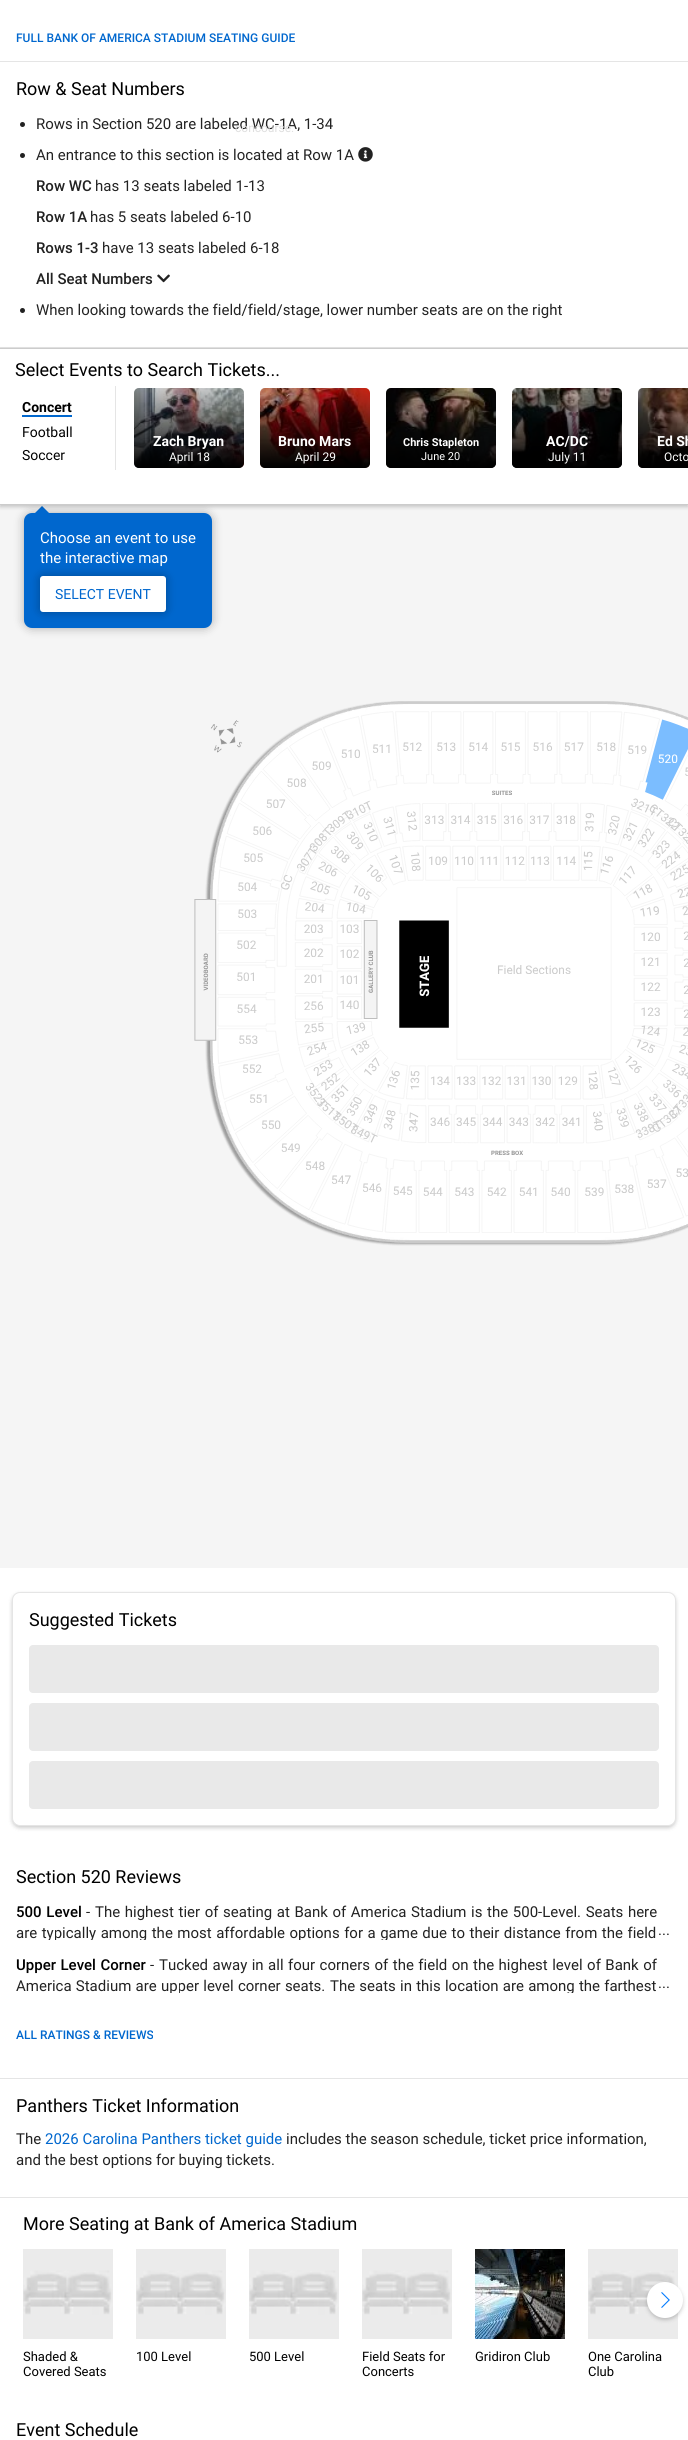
#include <cairo/cairo.h>
#include <math.h>
#include <stddef.h>


static void draw_spaced(cairo_t *cr, double x, double y, const char *s, double letter, double word) {
  cairo_move_to(cr, x, y);
  while (*s) {
    char ch[5] = {0};
    int n = 0;
    do ch[n++] = *s++; while ((*s & 0xC0) == 0x80);
    cairo_show_text(cr, ch);
    cairo_rel_move_to(cr, letter + word * (*ch == ' '), 0);
  }
}

static void rounded_rect(cairo_t *cr, double x, double y, double w, double h, double r) {
  cairo_new_sub_path(cr);
  cairo_arc(cr, x + w - r, y + h - r, r, 0, M_PI / 2);
  cairo_arc(cr, x + r, y + h - r, r, M_PI / 2, M_PI);
  cairo_arc(cr, x + r, y + r, r, M_PI, 1.5 * M_PI);
  cairo_arc(cr, x + w - r, y + r, r, 1.5 * M_PI, 2 * M_PI);
  cairo_close_path(cr);
}

static void draw_shadow(cairo_t *cr, double x, double y, double w, double h, double r, double blur, double alpha) {
  cairo_push_group_with_content(cr, CAIRO_CONTENT_ALPHA);
  cairo_set_operator(cr, CAIRO_OPERATOR_SOURCE);
  for (int i = 15; i >= -15 && fmin(w, h) + blur * i / 3 > 0; i -= 2) {
    double e = blur * i / 6;
    cairo_set_source_rgba(cr, 0, 0, 0, alpha * erfc((i - 1) / 8.5) / 2);
    rounded_rect(cr, x - e, y - e, w + 2 * e, h + 2 * e, fmax(0, fmin(r + e + blur * .6, fmin(w, h) / 2 + e)));
    cairo_fill(cr);
  }
  cairo_pattern_t *soft = cairo_pop_group(cr);
  cairo_mask(cr, soft);
  cairo_pattern_destroy(soft);
}

static void draw_image(cairo_t *cr, const char *path, double x, double y, double w, double h) {
  cairo_surface_t *image = cairo_image_surface_create_from_png(path);
  cairo_save(cr);
  cairo_set_source_surface(cr, image, x, y);
  cairo_rectangle(cr, x, y, w, h);
  cairo_fill(cr);
  cairo_restore(cr);
  cairo_surface_destroy(image);
}

static void draw(cairo_t *cr) {
  cairo_pattern_t *gradient;
  cairo_set_source_rgb(cr, 1, 1, 1);
  cairo_paint(cr);
  cairo_set_source_rgb(cr, 229 / 255.0, 229 / 255.0, 229 / 255.0);
  cairo_rectangle(cr, 0, 61, 688, 1);
  cairo_fill(cr);
  cairo_rectangle(cr, 0, 347, 688, 1);
  cairo_fill(cr);
  cairo_set_source_rgb(cr, 34 / 255.0, 34 / 255.0, 34 / 255.0);
  cairo_arc(cr, 22.5, 124.5, 2.5, 0, 2 * M_PI);
  cairo_fill(cr);
  draw_image(cr, "images/1.png", 358, 147, 15, 15);
  cairo_arc(cr, 22.5, 155.5, 2.5, 0, 2 * M_PI);
  cairo_fill(cr);
  draw_image(cr, "images/2.png", 157, 274, 13, 9);
  cairo_arc(cr, 22.5, 310.5, 2.5, 0, 2 * M_PI);
  cairo_fill(cr);
  cairo_set_source_rgb(cr, 245 / 255.0, 245 / 255.0, 245 / 255.0);
  cairo_rectangle(cr, 0, 505, 688, 1063);
  cairo_fill(cr);
  cairo_set_source_rgb(cr, 0, 0, 0);
  draw_shadow(cr, 24, 513, 188, 115, 8, 5, 0.3);
  cairo_set_source_rgb(cr, 0, 103 / 255.0, 206 / 255.0);
  rounded_rect(cr, 24, 513, 188, 115, 8);
  cairo_fill(cr);
  cairo_new_path(cr);
  cairo_move_to(cr, 50, 514);
  cairo_line_to(cr, 34, 514);
  cairo_line_to(cr, 42, 506);
  cairo_close_path(cr);
  cairo_fill(cr);
  cairo_set_source_rgb(cr, 0, 0, 0);
  draw_shadow(cr, 0, 350, 688, 157, 0, 2, 0.2);
  cairo_set_source_rgb(cr, 1, 1, 1);
  cairo_rectangle(cr, 0, 349, 688, 155);
  cairo_fill(cr);
  cairo_set_source_rgb(cr, 204 / 255.0, 204 / 255.0, 204 / 255.0);
  cairo_rectangle(cr, 0, 348, 688, 1);
  cairo_fill(cr);
  cairo_rectangle(cr, 0, 504, 688, 1);
  cairo_fill(cr);
  cairo_set_source_rgb(cr, 229 / 255.0, 229 / 255.0, 229 / 255.0);
  cairo_rectangle(cr, 115, 386, 1, 84);
  cairo_fill(cr);
  cairo_set_source_rgb(cr, 0, 103 / 255.0, 206 / 255.0);
  cairo_rectangle(cr, 22, 415, 50, 2);
  cairo_fill(cr);
  draw_image(cr, "images/3.png", 134, 388, 110, 80);
  gradient = cairo_pattern_create_linear(189, 388, 189, 468);
  cairo_pattern_add_color_stop_rgba(gradient, 0, 0, 0, 0, 0.2);
  cairo_pattern_add_color_stop_rgba(gradient, 0.5, 0, 0, 0, 0.6);
  cairo_pattern_add_color_stop_rgba(gradient, 1, 0, 0, 0, 1);
  cairo_set_source(cr, gradient);
  cairo_pattern_destroy(gradient);
  rounded_rect(cr, 134, 388, 110, 80, 5);
  cairo_fill(cr);
  draw_image(cr, "images/4.png", 260, 388, 110, 80);
  gradient = cairo_pattern_create_linear(315, 388, 315, 468);
  cairo_pattern_add_color_stop_rgba(gradient, 0, 0, 0, 0, 0.2);
  cairo_pattern_add_color_stop_rgba(gradient, 0.5, 0, 0, 0, 0.6);
  cairo_pattern_add_color_stop_rgba(gradient, 1, 0, 0, 0, 1);
  cairo_set_source(cr, gradient);
  cairo_pattern_destroy(gradient);
  rounded_rect(cr, 260, 388, 110, 80, 5);
  cairo_fill(cr);
  draw_image(cr, "images/5.png", 386, 388, 110, 80);
  gradient = cairo_pattern_create_linear(441, 388, 441, 468);
  cairo_pattern_add_color_stop_rgba(gradient, 0, 0, 0, 0, 0.2);
  cairo_pattern_add_color_stop_rgba(gradient, 0.5, 0, 0, 0, 0.6);
  cairo_pattern_add_color_stop_rgba(gradient, 1, 0, 0, 0, 1);
  cairo_set_source(cr, gradient);
  cairo_pattern_destroy(gradient);
  rounded_rect(cr, 386, 388, 110, 80, 5);
  cairo_fill(cr);
  draw_image(cr, "images/6.png", 512, 388, 110, 80);
  gradient = cairo_pattern_create_linear(567, 388, 567, 468);
  cairo_pattern_add_color_stop_rgba(gradient, 0, 0, 0, 0, 0.2);
  cairo_pattern_add_color_stop_rgba(gradient, 0.5, 0, 0, 0, 0.6);
  cairo_pattern_add_color_stop_rgba(gradient, 1, 0, 0, 0, 1);
  cairo_set_source(cr, gradient);
  cairo_pattern_destroy(gradient);
  rounded_rect(cr, 512, 388, 110, 80, 5);
  cairo_fill(cr);
  draw_image(cr, "images/7.png", 638, 388, 50, 80);
  gradient = cairo_pattern_create_linear(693, 388, 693, 468);
  cairo_pattern_add_color_stop_rgba(gradient, 0, 0, 0, 0, 0.2);
  cairo_pattern_add_color_stop_rgba(gradient, 0.5, 0, 0, 0, 0.6);
  cairo_pattern_add_color_stop_rgba(gradient, 1, 0, 0, 0, 1);
  cairo_set_source(cr, gradient);
  cairo_pattern_destroy(gradient);
  cairo_new_path(cr);
  cairo_move_to(cr, 643, 388);
  cairo_line_to(cr, 688, 388);
  cairo_line_to(cr, 688, 468);
  cairo_line_to(cr, 643, 468);
  cairo_curve_to(cr, 640, 468, 638, 466, 638, 463);
  cairo_line_to(cr, 638, 393);
  cairo_curve_to(cr, 638, 390, 640, 388, 643, 388);
  cairo_close_path(cr);
  cairo_fill(cr);
  cairo_set_source_rgb(cr, 0, 0, 0);
  draw_shadow(cr, 40, 576, 126, 36, 3, 5, 0.3);
  cairo_set_source_rgb(cr, 1, 1, 1);
  rounded_rect(cr, 40, 576, 126, 36, 3);
  cairo_fill(cr);
  draw_image(cr, "images/8.png", 194, 701, 494, 545);
  cairo_set_source_rgb(cr, 0, 0, 0);
  draw_shadow(cr, 12, 1594, 664, 234, 8, 2, 0.2);
  cairo_set_source_rgb(cr, 1, 1, 1);
  rounded_rect(cr, 12.5, 1592.5, 663, 233, 7.5);
  cairo_fill_preserve(cr);
  cairo_set_source_rgb(cr, 229 / 255.0, 229 / 255.0, 229 / 255.0);
  cairo_set_line_width(cr, 1);
  cairo_stroke(cr);
  cairo_set_source_rgb(cr, 233 / 255.0, 233 / 255.0, 233 / 255.0);
  rounded_rect(cr, 29, 1645, 630, 48, 4);
  cairo_fill(cr);
  rounded_rect(cr, 29, 1703, 630, 48, 4);
  cairo_fill(cr);
  rounded_rect(cr, 29, 1761, 630, 48, 4);
  cairo_fill(cr);
  cairo_set_source_rgb(cr, 229 / 255.0, 229 / 255.0, 229 / 255.0);
  cairo_rectangle(cr, 0, 2078, 688, 1);
  cairo_fill(cr);
  cairo_rectangle(cr, 0, 2197, 688, 1);
  cairo_fill(cr);
  draw_image(cr, "images/10.png", 588, 2249, 90, 90);
  cairo_set_source_rgb(cr, 0, 0, 0);
  draw_shadow(cr, 647, 2284, 36, 36, 18, 2, 0.2);
  cairo_set_source_rgb(cr, 1, 1, 1);
  cairo_arc(cr, 665, 2300, 18, 0, 2 * M_PI);
  cairo_fill(cr);
  draw_image(cr, "images/9.png", 661, 2292, 9, 16);
  draw_image(cr, "images/10.png", 23, 2249, 90, 90);
  draw_image(cr, "images/10.png", 136, 2249, 90, 90);
  draw_image(cr, "images/11.png", 249, 2249, 90, 90);
  draw_image(cr, "images/11.png", 362, 2249, 90, 90);
  draw_image(cr, "images/12.png", 475, 2249, 90, 90);
  cairo_select_font_face(cr, "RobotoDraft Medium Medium", CAIRO_FONT_SLANT_NORMAL, CAIRO_FONT_WEIGHT_NORMAL);
  cairo_set_font_size(cr, 12);
  cairo_set_source_rgb(cr, 0, 103 / 255.0, 206 / 255.0);
  cairo_move_to(cr, 16, 42);
  cairo_show_text(cr, "FULL BANK OF AMERICA STADIUM SEATING GUIDE");
  cairo_select_font_face(cr, "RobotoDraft", CAIRO_FONT_SLANT_NORMAL, CAIRO_FONT_WEIGHT_NORMAL);
  cairo_set_font_size(cr, 18);
  cairo_set_source_rgb(cr, 0, 0, 0);
  cairo_move_to(cr, 16, 95);
  cairo_show_text(cr, "Row & Seat Numbers");
  cairo_set_font_size(cr, 15);
  cairo_set_source_rgb(cr, 34 / 255.0, 34 / 255.0, 34 / 255.0);
  cairo_move_to(cr, 36, 129);
  cairo_show_text(cr, "Rows in Section 520 are labeled WC-1A, 1-34");
  cairo_set_font_size(cr, 12);
  cairo_set_source_rgb(cr, 223 / 255.0, 223 / 255.0, 223 / 255.0);
  cairo_move_to(cr, 235, 132);
  cairo_show_text(cr, "concourse.");
  cairo_set_font_size(cr, 15);
  cairo_set_source_rgb(cr, 34 / 255.0, 34 / 255.0, 34 / 255.0);
  cairo_move_to(cr, 36, 160);
  cairo_show_text(cr, "An entrance to this section is located at Row 1A");
  cairo_select_font_face(cr, "RobotoDraft Medium Medium", CAIRO_FONT_SLANT_NORMAL, CAIRO_FONT_WEIGHT_NORMAL);
  cairo_move_to(cr, 36, 191);
  cairo_show_text(cr, "Row WC");
  cairo_select_font_face(cr, "RobotoDraft", CAIRO_FONT_SLANT_NORMAL, CAIRO_FONT_WEIGHT_NORMAL);
  cairo_move_to(cr, 95, 191);
  cairo_show_text(cr, "has 13 seats labeled 1-13");
  cairo_select_font_face(cr, "RobotoDraft Medium Medium", CAIRO_FONT_SLANT_NORMAL, CAIRO_FONT_WEIGHT_NORMAL);
  cairo_move_to(cr, 36, 222);
  cairo_show_text(cr, "Row 1A");
  cairo_select_font_face(cr, "RobotoDraft", CAIRO_FONT_SLANT_NORMAL, CAIRO_FONT_WEIGHT_NORMAL);
  cairo_move_to(cr, 90, 222);
  cairo_show_text(cr, "has 5 seats labeled 6-10");
  cairo_select_font_face(cr, "RobotoDraft Medium Medium", CAIRO_FONT_SLANT_NORMAL, CAIRO_FONT_WEIGHT_NORMAL);
  cairo_move_to(cr, 36, 253);
  cairo_show_text(cr, "Rows 1-3");
  cairo_select_font_face(cr, "RobotoDraft", CAIRO_FONT_SLANT_NORMAL, CAIRO_FONT_WEIGHT_NORMAL);
  cairo_move_to(cr, 102, 253);
  cairo_show_text(cr, "have 13 seats labeled 6-18");
  cairo_select_font_face(cr, "RobotoDraft Medium Medium", CAIRO_FONT_SLANT_NORMAL, CAIRO_FONT_WEIGHT_NORMAL);
  cairo_move_to(cr, 36, 284);
  cairo_show_text(cr, "All Seat Numbers");
  cairo_select_font_face(cr, "RobotoDraft", CAIRO_FONT_SLANT_NORMAL, CAIRO_FONT_WEIGHT_NORMAL);
  cairo_move_to(cr, 36, 315);
  cairo_show_text(cr, "When looking towards the field/field/stage, lower number seats are on the right");
  cairo_set_font_size(cr, 18);
  cairo_set_source_rgb(cr, 0, 0, 0);
  cairo_move_to(cr, 15, 376);
  cairo_show_text(cr, "Select Events to Search Tickets...");
  cairo_select_font_face(cr, "RobotoDraft", CAIRO_FONT_SLANT_NORMAL, CAIRO_FONT_WEIGHT_BOLD);
  cairo_set_font_size(cr, 14);
  cairo_move_to(cr, 22, 412);
  cairo_show_text(cr, "Concert");
  cairo_select_font_face(cr, "RobotoDraft", CAIRO_FONT_SLANT_NORMAL, CAIRO_FONT_WEIGHT_NORMAL);
  cairo_move_to(cr, 22, 437);
  cairo_show_text(cr, "Football");
  cairo_move_to(cr, 22, 460);
  cairo_show_text(cr, "Soccer");
  cairo_select_font_face(cr, "RobotoDraft", CAIRO_FONT_SLANT_NORMAL, CAIRO_FONT_WEIGHT_BOLD);
  cairo_set_source_rgb(cr, 1, 1, 1);
  cairo_move_to(cr, 153, 446);
  cairo_show_text(cr, "Zach Bryan");
  cairo_select_font_face(cr, "RobotoDraft", CAIRO_FONT_SLANT_NORMAL, CAIRO_FONT_WEIGHT_NORMAL);
  cairo_set_font_size(cr, 12);
  cairo_move_to(cr, 169, 461);
  cairo_show_text(cr, "April 18");
  cairo_select_font_face(cr, "RobotoDraft", CAIRO_FONT_SLANT_NORMAL, CAIRO_FONT_WEIGHT_BOLD);
  cairo_set_font_size(cr, 14);
  cairo_move_to(cr, 278, 446);
  cairo_show_text(cr, "Bruno Mars");
  cairo_select_font_face(cr, "RobotoDraft", CAIRO_FONT_SLANT_NORMAL, CAIRO_FONT_WEIGHT_NORMAL);
  cairo_set_font_size(cr, 12);
  cairo_move_to(cr, 295, 461);
  cairo_show_text(cr, "April 29");
  cairo_select_font_face(cr, "RobotoDraft", CAIRO_FONT_SLANT_NORMAL, CAIRO_FONT_WEIGHT_BOLD);
  cairo_set_font_size(cr, 11);
  cairo_move_to(cr, 403, 446);
  cairo_show_text(cr, "Chris Stapleton");
  cairo_select_font_face(cr, "RobotoDraft", CAIRO_FONT_SLANT_NORMAL, CAIRO_FONT_WEIGHT_NORMAL);
  cairo_move_to(cr, 421, 460);
  cairo_show_text(cr, "June 20");
  cairo_select_font_face(cr, "RobotoDraft", CAIRO_FONT_SLANT_NORMAL, CAIRO_FONT_WEIGHT_BOLD);
  cairo_set_font_size(cr, 14);
  cairo_move_to(cr, 546, 446);
  cairo_show_text(cr, "AC/DC");
  cairo_select_font_face(cr, "RobotoDraft", CAIRO_FONT_SLANT_NORMAL, CAIRO_FONT_WEIGHT_NORMAL);
  cairo_set_font_size(cr, 12);
  cairo_move_to(cr, 548, 461);
  cairo_show_text(cr, "July 11");
  cairo_select_font_face(cr, "RobotoDraft", CAIRO_FONT_SLANT_NORMAL, CAIRO_FONT_WEIGHT_BOLD);
  cairo_set_font_size(cr, 14);
  cairo_move_to(cr, 657, 446);
  cairo_show_text(cr, "Ed Sh");
  cairo_select_font_face(cr, "RobotoDraft", CAIRO_FONT_SLANT_NORMAL, CAIRO_FONT_WEIGHT_NORMAL);
  cairo_set_font_size(cr, 12);
  cairo_move_to(cr, 664, 461);
  cairo_show_text(cr, "Octo");
  cairo_set_font_size(cr, 15);
  cairo_move_to(cr, 40, 543);
  cairo_show_text(cr, "Choose an event to use");
  cairo_move_to(cr, 40, 563);
  cairo_show_text(cr, "the interactive map");
  cairo_set_font_size(cr, 14);
  cairo_set_source_rgb(cr, 0, 103 / 255.0, 206 / 255.0);
  cairo_move_to(cr, 55, 599);
  cairo_show_text(cr, "SELECT EVENT");
  cairo_set_font_size(cr, 18);
  cairo_set_source_rgb(cr, 0, 0, 0);
  cairo_move_to(cr, 29, 1626);
  cairo_show_text(cr, "Suggested Tickets");
  cairo_move_to(cr, 16, 1883);
  cairo_show_text(cr, "Section 520 Reviews");
  cairo_select_font_face(cr, "RobotoDraft Medium Medium", CAIRO_FONT_SLANT_NORMAL, CAIRO_FONT_WEIGHT_NORMAL);
  cairo_set_font_size(cr, 15);
  draw_spaced(cr, 16, 1917, "500 Level", 0, 1);
  cairo_select_font_face(cr, "RobotoDraft", CAIRO_FONT_SLANT_NORMAL, CAIRO_FONT_WEIGHT_NORMAL);
  cairo_set_source_rgb(cr, 34 / 255.0, 34 / 255.0, 34 / 255.0);
  cairo_move_to(cr, 86, 1917);
  cairo_show_text(cr, "-");
  draw_spaced(cr, 95, 1917, "The highest tier of seating at Bank of America Stadium is the 500-Level. Seats here", 0, 0.9);
  cairo_save(cr);
  cairo_rectangle(cr, 16, 1902, 656, 38);
  cairo_clip(cr);
  draw_spaced(cr, 16, 1938, "are typically among the most affordable options for a game due to their distance from the field", 0, 0.8);
  cairo_restore(cr);
  cairo_move_to(cr, 658, 1935);
  cairo_show_text(cr, "...");
  cairo_select_font_face(cr, "RobotoDraft Medium Medium", CAIRO_FONT_SLANT_NORMAL, CAIRO_FONT_WEIGHT_NORMAL);
  cairo_set_source_rgb(cr, 0, 0, 0);
  draw_spaced(cr, 16, 1970, "Upper Level Corner", 0, 0.75);
  cairo_select_font_face(cr, "RobotoDraft", CAIRO_FONT_SLANT_NORMAL, CAIRO_FONT_WEIGHT_NORMAL);
  cairo_set_source_rgb(cr, 34 / 255.0, 34 / 255.0, 34 / 255.0);
  cairo_move_to(cr, 150, 1970);
  cairo_show_text(cr, "-");
  draw_spaced(cr, 159, 1970, "Tucked away in all four corners of the field on the highest level of Bank of", 0, 0.75);
  cairo_save(cr);
  cairo_rectangle(cr, 16, 1955, 656, 38);
  cairo_clip(cr);
  draw_spaced(cr, 16, 1991, "America Stadium are upper level corner seats.", 0, 0.5);
  draw_spaced(cr, 330, 1991, "The seats in this location are among the farthest", 0, 0.5);
  cairo_restore(cr);
  cairo_move_to(cr, 658, 1988);
  cairo_show_text(cr, "...");
  cairo_select_font_face(cr, "RobotoDraft Medium Medium", CAIRO_FONT_SLANT_NORMAL, CAIRO_FONT_WEIGHT_NORMAL);
  cairo_set_font_size(cr, 12);
  cairo_set_source_rgb(cr, 0, 103 / 255.0, 206 / 255.0);
  cairo_move_to(cr, 16, 2039);
  cairo_show_text(cr, "ALL RATINGS & REVIEWS");
  cairo_select_font_face(cr, "RobotoDraft", CAIRO_FONT_SLANT_NORMAL, CAIRO_FONT_WEIGHT_NORMAL);
  cairo_set_font_size(cr, 18);
  cairo_set_source_rgb(cr, 0, 0, 0);
  cairo_move_to(cr, 16, 2112);
  cairo_show_text(cr, "Panthers Ticket Information");
  cairo_set_font_size(cr, 15);
  cairo_set_source_rgb(cr, 34 / 255.0, 34 / 255.0, 34 / 255.0);
  cairo_move_to(cr, 16, 2144);
  cairo_show_text(cr, "The");
  cairo_set_source_rgb(cr, 0, 103 / 255.0, 206 / 255.0);
  cairo_move_to(cr, 45, 2144);
  cairo_show_text(cr, "2026 Carolina Panthers ticket guide");
  cairo_set_source_rgb(cr, 34 / 255.0, 34 / 255.0, 34 / 255.0);
  cairo_move_to(cr, 286, 2144);
  cairo_show_text(cr, "includes the season schedule, ticket price information,");
  cairo_move_to(cr, 16, 2165);
  cairo_show_text(cr, "and the best options for buying tickets.");
  cairo_set_font_size(cr, 18);
  cairo_set_source_rgb(cr, 0, 0, 0);
  cairo_move_to(cr, 23, 2230);
  cairo_show_text(cr, "More Seating at Bank of America Stadium");
  cairo_set_font_size(cr, 13);
  cairo_move_to(cr, 23, 2361);
  cairo_show_text(cr, "Shaded &");
  cairo_move_to(cr, 23, 2376);
  cairo_show_text(cr, "Covered Seats");
  cairo_move_to(cr, 136, 2361);
  cairo_show_text(cr, "100 Level");
  cairo_move_to(cr, 249, 2361);
  cairo_show_text(cr, "500 Level");
  cairo_move_to(cr, 362, 2361);
  cairo_show_text(cr, "Field Seats for");
  cairo_move_to(cr, 362, 2376);
  cairo_show_text(cr, "Concerts");
  cairo_move_to(cr, 475, 2361);
  cairo_show_text(cr, "Gridiron Club");
  cairo_move_to(cr, 588, 2361);
  cairo_show_text(cr, "One Carolina");
  cairo_move_to(cr, 588, 2376);
  cairo_show_text(cr, "Club");
  cairo_set_font_size(cr, 18);
  cairo_move_to(cr, 16, 2436);
  cairo_show_text(cr, "Event Schedule");
}

int main(void) {
  cairo_surface_t *surface = cairo_image_surface_create(CAIRO_FORMAT_RGB24, 688, 2440);
  cairo_t *cr = cairo_create(surface);
  cairo_font_options_t *options = cairo_font_options_create();
  cairo_font_options_set_hint_metrics(options, CAIRO_HINT_METRICS_OFF);
  cairo_font_options_set_hint_style(options, CAIRO_HINT_STYLE_NONE);
  cairo_set_font_options(cr, options);
  cairo_set_miter_limit(cr, 4);
  draw(cr);
  cairo_surface_write_to_png(surface, "out.png");
  cairo_font_options_destroy(options);
  cairo_destroy(cr);
  cairo_surface_destroy(surface);
  return 0;
}
